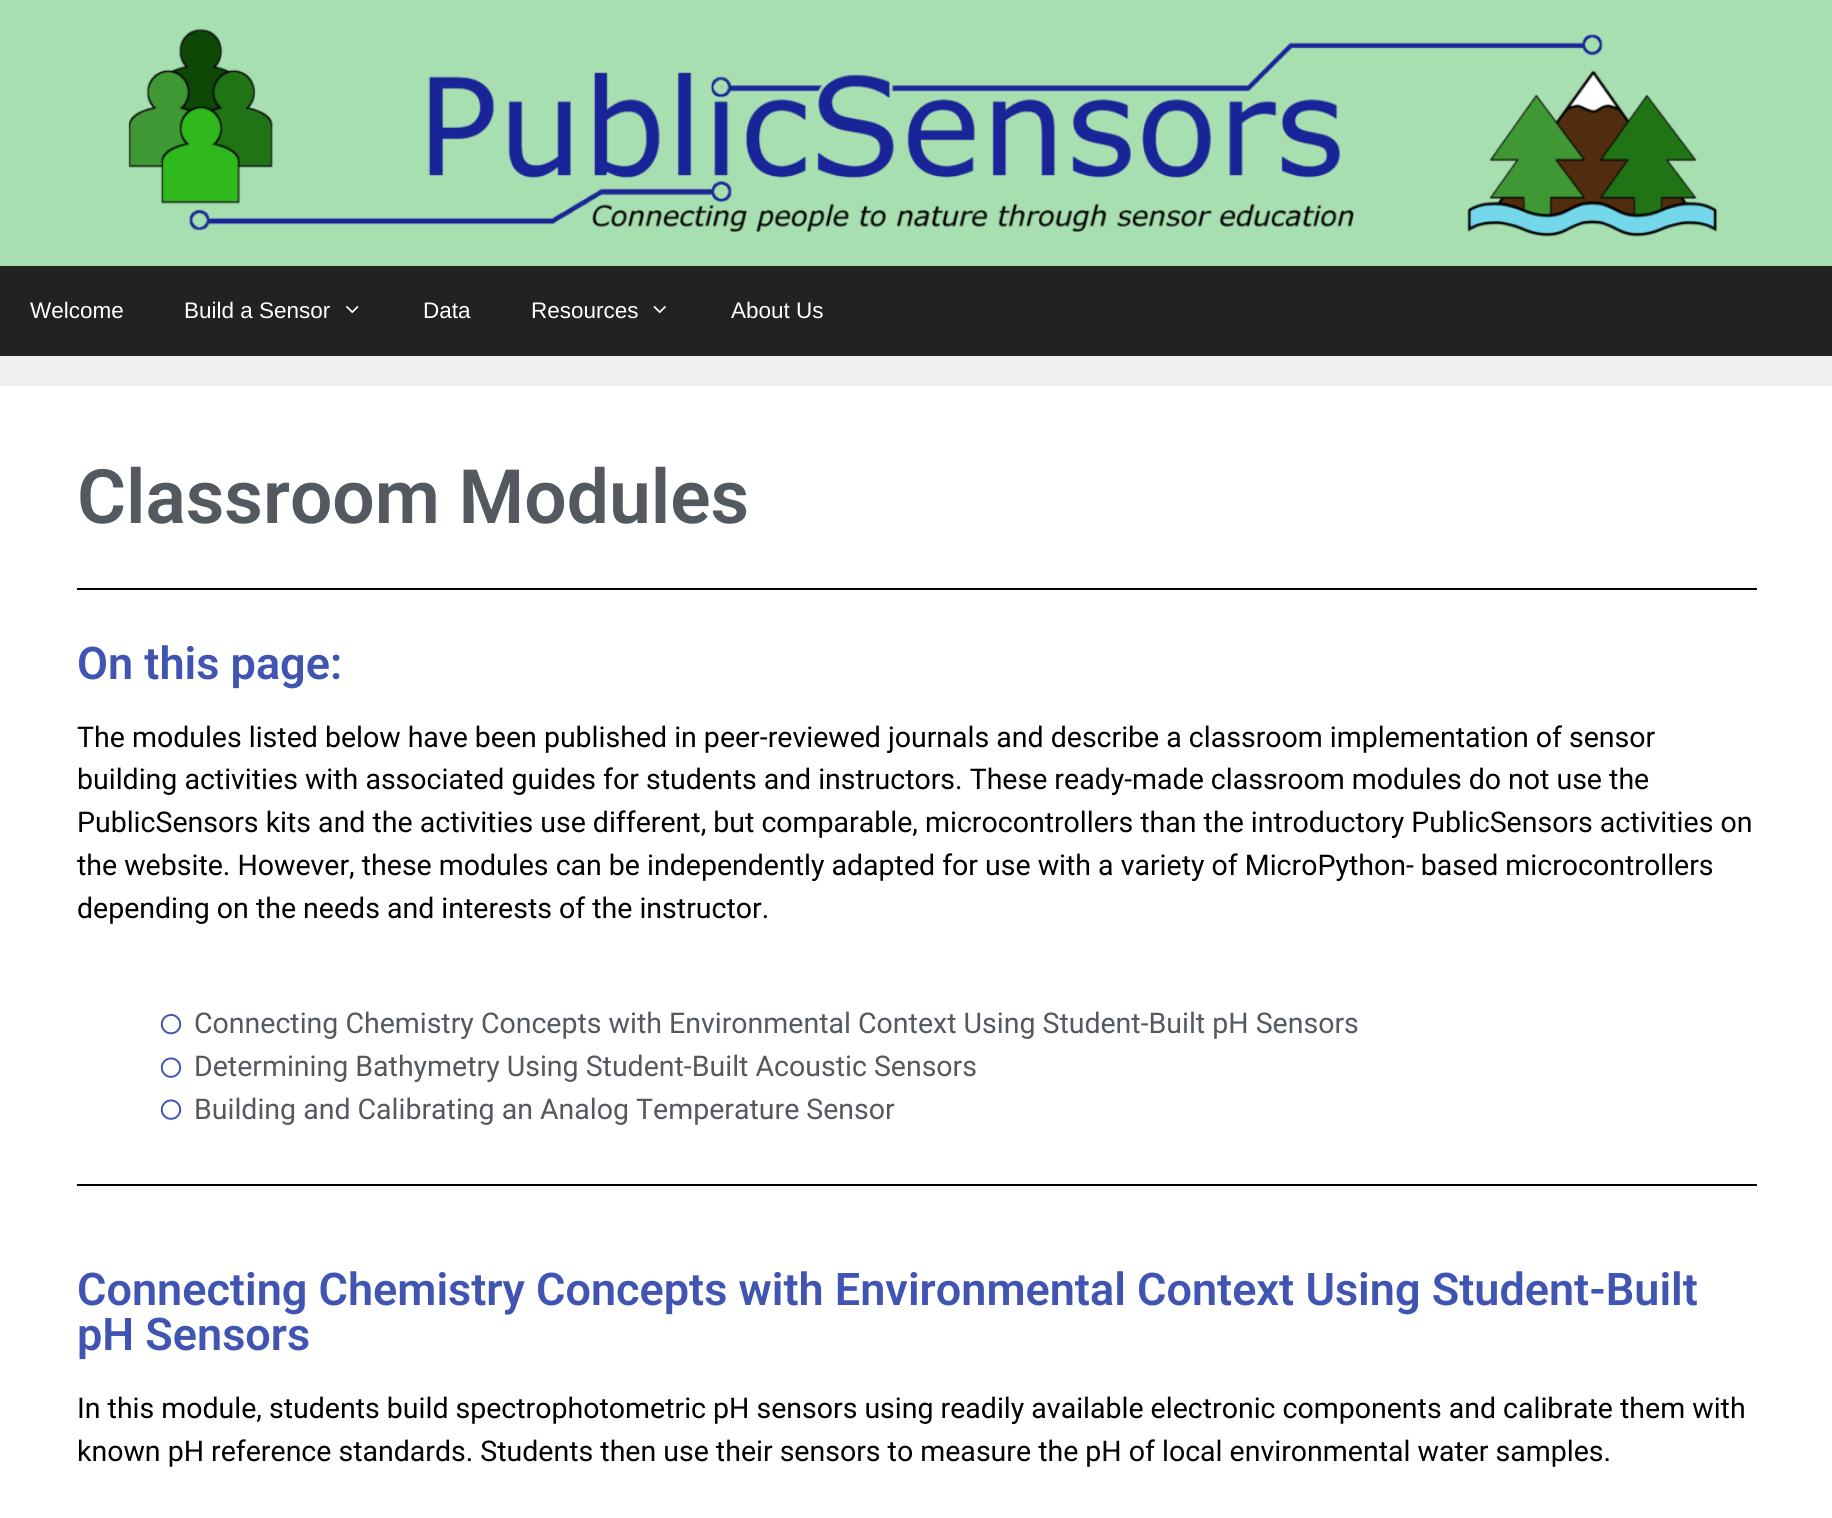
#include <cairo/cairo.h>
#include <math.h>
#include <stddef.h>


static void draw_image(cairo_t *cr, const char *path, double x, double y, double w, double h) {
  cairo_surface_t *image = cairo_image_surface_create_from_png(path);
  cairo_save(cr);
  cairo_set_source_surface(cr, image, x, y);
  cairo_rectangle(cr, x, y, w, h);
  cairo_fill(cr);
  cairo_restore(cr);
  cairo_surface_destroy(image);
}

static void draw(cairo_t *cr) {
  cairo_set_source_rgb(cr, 239 / 255.0, 239 / 255.0, 239 / 255.0);
  cairo_paint(cr);
  cairo_set_source_rgb(cr, 168 / 255.0, 223 / 255.0, 176 / 255.0);
  cairo_rectangle(cr, 0, 0, 1832, 266);
  cairo_fill(cr);
  draw_image(cr, "images/1.png", 128, 28, 1590, 209);
  cairo_set_source_rgb(cr, 34 / 255.0, 34 / 255.0, 34 / 255.0);
  cairo_rectangle(cr, 0, 266, 1832, 90);
  cairo_fill(cr);
  draw_image(cr, "images/2.png", 346, 306, 13, 8);
  draw_image(cr, "images/3.png", 653, 306, 13, 8);
  cairo_set_source_rgb(cr, 1, 1, 1);
  cairo_rectangle(cr, 0, 386, 1832, 1132);
  cairo_fill(cr);
  cairo_set_source_rgb(cr, 0, 0, 0);
  cairo_rectangle(cr, 77, 588, 1680, 2);
  cairo_fill(cr);
  draw_image(cr, "images/4.png", 160, 1014, 22, 21);
  draw_image(cr, "images/5.png", 160, 1057, 22, 21);
  draw_image(cr, "images/5.png", 160, 1099, 22, 21);
  cairo_rectangle(cr, 77, 1184, 1680, 2);
  cairo_fill(cr);
  cairo_select_font_face(cr, "Liberation Sans", CAIRO_FONT_SLANT_NORMAL, CAIRO_FONT_WEIGHT_NORMAL);
  cairo_set_font_size(cr, 22.5);
  cairo_set_source_rgb(cr, 1, 1, 1);
  cairo_move_to(cr, 30, 318);
  cairo_show_text(cr, "Welcome");
  cairo_move_to(cr, 184, 318);
  cairo_show_text(cr, "Build a Sensor");
  cairo_move_to(cr, 423, 318);
  cairo_show_text(cr, "Data");
  cairo_move_to(cr, 531, 318);
  cairo_show_text(cr, "Resources");
  cairo_move_to(cr, 731, 318);
  cairo_show_text(cr, "About Us");
  cairo_select_font_face(cr, "Roboto SemiBold", CAIRO_FONT_SLANT_NORMAL, CAIRO_FONT_WEIGHT_NORMAL);
  cairo_set_font_size(cr, 75);
  cairo_set_source_rgb(cr, 84 / 255.0, 89 / 255.0, 95 / 255.0);
  cairo_move_to(cr, 77, 523);
  cairo_show_text(cr, "Classroom Modules");
  cairo_set_font_size(cr, 45);
  cairo_set_source_rgb(cr, 64 / 255.0, 84 / 255.0, 178 / 255.0);
  cairo_move_to(cr, 77, 679);
  cairo_show_text(cr, "On this page:");
  cairo_select_font_face(cr, "Roboto", CAIRO_FONT_SLANT_NORMAL, CAIRO_FONT_WEIGHT_NORMAL);
  cairo_set_font_size(cr, 28.5);
  cairo_set_source_rgb(cr, 0, 0, 0);
  cairo_move_to(cr, 77, 747);
  cairo_show_text(cr, "The modules listed below have been published in peer-reviewed journals and describe a classroom implementation of sensor");
  cairo_move_to(cr, 77, 789);
  cairo_show_text(cr, "building activities with associated guides for students and instructors. These ready-made classroom modules do not use the");
  cairo_move_to(cr, 77, 832);
  cairo_show_text(cr, "PublicSensors kits and the activities use different, but comparable, microcontrollers than the introductory PublicSensors activities on");
  cairo_move_to(cr, 77, 875);
  cairo_show_text(cr, "the website. However, these modules can be independently adapted for use with a variety of MicroPython- based microcontrollers");
  cairo_move_to(cr, 77, 918);
  cairo_show_text(cr, "depending on the needs and interests of the instructor.");
  cairo_set_source_rgb(cr, 84 / 255.0, 89 / 255.0, 95 / 255.0);
  cairo_move_to(cr, 194, 1033);
  cairo_show_text(cr, "Connecting Chemistry Concepts with Environmental Context Using Student-Built pH Sensors");
  cairo_move_to(cr, 194, 1076);
  cairo_show_text(cr, "Determining Bathymetry Using Student-Built Acoustic Sensors");
  cairo_move_to(cr, 194, 1119);
  cairo_show_text(cr, "Building and Calibrating an Analog Temperature Sensor");
  cairo_select_font_face(cr, "Roboto SemiBold", CAIRO_FONT_SLANT_NORMAL, CAIRO_FONT_WEIGHT_NORMAL);
  cairo_set_font_size(cr, 45);
  cairo_set_source_rgb(cr, 64 / 255.0, 84 / 255.0, 178 / 255.0);
  cairo_move_to(cr, 77, 1305);
  cairo_show_text(cr, "Connecting Chemistry Concepts with Environmental Context Using Student-Built");
  cairo_move_to(cr, 77, 1350);
  cairo_show_text(cr, "pH Sensors");
  cairo_select_font_face(cr, "Roboto", CAIRO_FONT_SLANT_NORMAL, CAIRO_FONT_WEIGHT_NORMAL);
  cairo_set_font_size(cr, 28.5);
  cairo_set_source_rgb(cr, 0, 0, 0);
  cairo_move_to(cr, 77, 1418);
  cairo_show_text(cr, "In this module, students build spectrophotometric pH sensors using readily available electronic components and calibrate them with");
  cairo_move_to(cr, 77, 1461);
  cairo_show_text(cr, "known pH reference standards. Students then use their sensors to measure the pH of local environmental water samples.");
}

int main(void) {
  cairo_surface_t *surface = cairo_image_surface_create(CAIRO_FORMAT_RGB24, 1832, 1518);
  cairo_t *cr = cairo_create(surface);
  cairo_font_options_t *options = cairo_font_options_create();
  cairo_font_options_set_hint_metrics(options, CAIRO_HINT_METRICS_OFF);
  cairo_font_options_set_hint_style(options, CAIRO_HINT_STYLE_NONE);
  cairo_set_font_options(cr, options);
  cairo_set_miter_limit(cr, 4);
  draw(cr);
  cairo_surface_write_to_png(surface, "out.png");
  cairo_font_options_destroy(options);
  cairo_destroy(cr);
  cairo_surface_destroy(surface);
  return 0;
}
